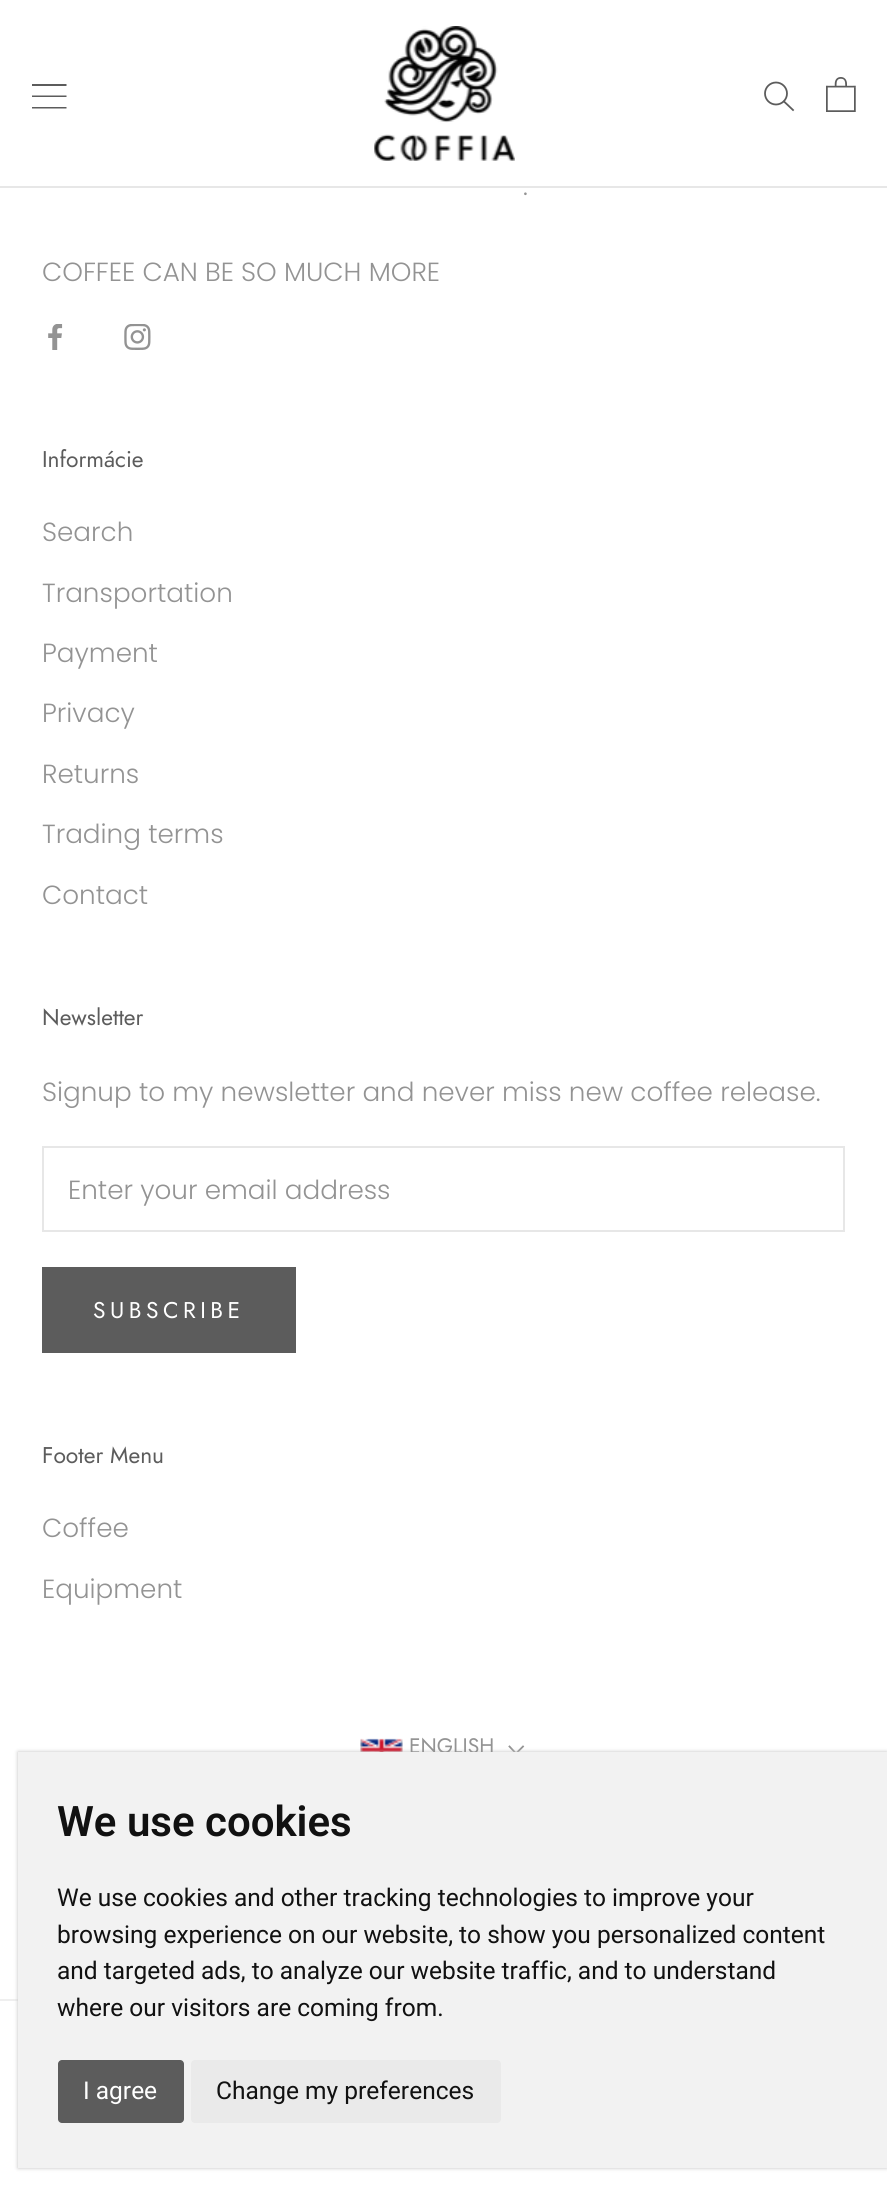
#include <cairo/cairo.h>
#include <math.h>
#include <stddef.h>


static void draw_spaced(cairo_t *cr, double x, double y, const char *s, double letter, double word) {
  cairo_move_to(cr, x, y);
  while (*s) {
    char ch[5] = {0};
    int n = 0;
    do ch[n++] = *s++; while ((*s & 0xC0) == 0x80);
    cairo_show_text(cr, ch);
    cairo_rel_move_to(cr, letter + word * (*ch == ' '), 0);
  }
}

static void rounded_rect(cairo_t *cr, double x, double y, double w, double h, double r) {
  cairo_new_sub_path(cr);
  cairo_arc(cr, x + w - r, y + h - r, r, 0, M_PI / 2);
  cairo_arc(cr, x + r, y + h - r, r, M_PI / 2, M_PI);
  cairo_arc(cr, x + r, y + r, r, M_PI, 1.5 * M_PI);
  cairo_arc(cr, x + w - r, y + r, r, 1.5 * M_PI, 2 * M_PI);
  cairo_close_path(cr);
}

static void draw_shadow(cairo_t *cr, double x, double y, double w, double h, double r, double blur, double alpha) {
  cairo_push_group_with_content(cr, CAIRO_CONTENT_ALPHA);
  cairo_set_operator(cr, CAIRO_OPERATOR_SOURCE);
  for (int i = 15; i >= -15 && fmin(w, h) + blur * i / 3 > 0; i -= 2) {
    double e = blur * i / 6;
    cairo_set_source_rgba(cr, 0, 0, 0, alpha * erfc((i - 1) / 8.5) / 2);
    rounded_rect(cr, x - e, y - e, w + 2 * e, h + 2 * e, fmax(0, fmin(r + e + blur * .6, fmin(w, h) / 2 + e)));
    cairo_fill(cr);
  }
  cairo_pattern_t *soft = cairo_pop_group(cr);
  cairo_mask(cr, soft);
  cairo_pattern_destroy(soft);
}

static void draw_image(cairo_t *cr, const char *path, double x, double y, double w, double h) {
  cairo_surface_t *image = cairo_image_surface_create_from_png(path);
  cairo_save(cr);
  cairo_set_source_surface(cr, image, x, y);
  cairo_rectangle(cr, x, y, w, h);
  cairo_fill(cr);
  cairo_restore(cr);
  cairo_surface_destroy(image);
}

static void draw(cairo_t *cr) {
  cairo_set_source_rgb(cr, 1, 1, 1);
  cairo_paint(cr);
  cairo_set_source_rgb(cr, 231 / 255.0, 231 / 255.0, 231 / 255.0);
  cairo_rectangle(cr, 0, 186, 887, 2);
  cairo_fill(cr);
  cairo_save(cr);
  cairo_rectangle(cr, 32, 84, 35, 25);
  cairo_clip(cr);
  cairo_set_source_rgb(cr, 92 / 255.0, 92 / 255.0, 92 / 255.0);
  cairo_new_path(cr);
  cairo_move_to(cr, 31.5, 108.5);
  cairo_line_to(cr, 31.5, 107);
  cairo_line_to(cr, 66.5, 107);
  cairo_line_to(cr, 66.5, 108.5);
  cairo_close_path(cr);
  cairo_move_to(cr, 31.5, 95.5);
  cairo_line_to(cr, 66.5, 95.5);
  cairo_line_to(cr, 66.5, 97);
  cairo_line_to(cr, 31.5, 97);
  cairo_close_path(cr);
  cairo_move_to(cr, 31.5, 84);
  cairo_line_to(cr, 66.5, 84);
  cairo_line_to(cr, 66.5, 86);
  cairo_line_to(cr, 31.5, 86);
  cairo_close_path(cr);
  cairo_fill(cr);
  cairo_restore(cr);
  draw_image(cr, "images/1.png", 374, 26, 141, 135);
  cairo_new_path(cr);
  cairo_move_to(cr, 793, 110);
  cairo_line_to(cr, 784, 101.5);
  cairo_set_source_rgb(cr, 92 / 255.0, 92 / 255.0, 92 / 255.0);
  cairo_set_line_width(cr, 1.8);
  cairo_set_line_cap(cr, CAIRO_LINE_CAP_SQUARE);
  cairo_stroke(cr);
  cairo_arc(cr, 776, 93.5, 11, 0, 2 * M_PI);
  cairo_set_line_cap(cr, CAIRO_LINE_CAP_BUTT);
  cairo_stroke(cr);
  draw_image(cr, "images/2.png", 826, 77, 30, 35);
  draw_image(cr, "images/3.png", 48, 324, 15, 26);
  draw_image(cr, "images/4.png", 124, 324, 27, 26);
  cairo_rectangle(cr, 43, 1147, 801, 84);
  cairo_set_source_rgb(cr, 231 / 255.0, 231 / 255.0, 231 / 255.0);
  cairo_set_line_width(cr, 2);
  cairo_stroke(cr);
  cairo_rectangle(cr, 43, 1268, 252, 84);
  cairo_set_source_rgb(cr, 92 / 255.0, 92 / 255.0, 92 / 255.0);
  cairo_stroke(cr);
  cairo_rectangle(cr, 44, 1269, 250, 82);
  cairo_fill(cr);
  draw_image(cr, "images/5.png", 360, 1738, 43, 14);
  cairo_new_path(cr);
  cairo_move_to(cr, 523, 1746.5);
  cairo_line_to(cr, 516, 1753.5);
  cairo_line_to(cr, 509.5, 1746.5);
  cairo_set_source_rgb(cr, 147 / 255.0, 147 / 255.0, 147 / 255.0);
  cairo_set_line_width(cr, 1.8);
  cairo_set_line_cap(cr, CAIRO_LINE_CAP_SQUARE);
  cairo_stroke(cr);
  cairo_set_source_rgb(cr, 239 / 255.0, 239 / 255.0, 239 / 255.0);
  cairo_rectangle(cr, 0, 1999, 18, 2);
  cairo_fill(cr);
  cairo_set_source_rgb(cr, 192 / 255.0, 192 / 255.0, 192 / 255.0);
  draw_shadow(cr, 18, 1752, 869, 416, 0, 2, 1);
  cairo_select_font_face(cr, "Poppins Light", CAIRO_FONT_SLANT_NORMAL, CAIRO_FONT_WEIGHT_NORMAL);
  cairo_set_font_size(cr, 26.25);
  cairo_set_source_rgb(cr, 147 / 255.0, 147 / 255.0, 147 / 255.0);
  cairo_move_to(cr, 523, 195);
  cairo_show_text(cr, ".");
  cairo_move_to(cr, 42, 281);
  cairo_show_text(cr, "COFFEE CAN BE SO MUCH MORE");
  cairo_select_font_face(cr, "Jost", CAIRO_FONT_SLANT_NORMAL, CAIRO_FONT_WEIGHT_NORMAL);
  cairo_set_font_size(cr, 22.75);
  cairo_set_source_rgb(cr, 92 / 255.0, 92 / 255.0, 92 / 255.0);
  cairo_move_to(cr, 42, 467);
  cairo_show_text(cr, "Informácie");
  cairo_select_font_face(cr, "Poppins Light", CAIRO_FONT_SLANT_NORMAL, CAIRO_FONT_WEIGHT_NORMAL);
  cairo_set_font_size(cr, 26.25);
  cairo_set_source_rgb(cr, 147 / 255.0, 147 / 255.0, 147 / 255.0);
  cairo_move_to(cr, 42, 541);
  cairo_show_text(cr, "Search");
  cairo_move_to(cr, 42, 602);
  cairo_show_text(cr, "Transportation");
  cairo_move_to(cr, 42, 662);
  cairo_show_text(cr, "Payment");
  cairo_move_to(cr, 42, 722);
  cairo_show_text(cr, "Privacy");
  cairo_move_to(cr, 42, 783);
  cairo_show_text(cr, "Returns");
  cairo_move_to(cr, 42, 843);
  cairo_show_text(cr, "Trading terms");
  cairo_move_to(cr, 42, 904);
  cairo_show_text(cr, "Contact");
  cairo_select_font_face(cr, "Jost", CAIRO_FONT_SLANT_NORMAL, CAIRO_FONT_WEIGHT_NORMAL);
  cairo_set_font_size(cr, 22.75);
  cairo_set_source_rgb(cr, 92 / 255.0, 92 / 255.0, 92 / 255.0);
  cairo_move_to(cr, 42, 1025);
  cairo_show_text(cr, "Newsletter");
  cairo_select_font_face(cr, "Poppins Light", CAIRO_FONT_SLANT_NORMAL, CAIRO_FONT_WEIGHT_NORMAL);
  cairo_set_font_size(cr, 26.25);
  cairo_set_source_rgb(cr, 147 / 255.0, 147 / 255.0, 147 / 255.0);
  cairo_move_to(cr, 42, 1101);
  cairo_show_text(cr, "Signup to my newsletter and never miss new coffee release.");
  cairo_move_to(cr, 68, 1199);
  cairo_show_text(cr, "Enter your email address");
  cairo_select_font_face(cr, "Jost", CAIRO_FONT_SLANT_NORMAL, CAIRO_FONT_WEIGHT_NORMAL);
  cairo_set_font_size(cr, 22.75);
  cairo_set_source_rgb(cr, 1, 1, 1);
  draw_spaced(cr, 93, 1318, "SUBSCRIBE", 4.5, 0);
  cairo_set_source_rgb(cr, 92 / 255.0, 92 / 255.0, 92 / 255.0);
  cairo_move_to(cr, 42, 1463);
  cairo_show_text(cr, "Footer Menu");
  cairo_select_font_face(cr, "Poppins Light", CAIRO_FONT_SLANT_NORMAL, CAIRO_FONT_WEIGHT_NORMAL);
  cairo_set_font_size(cr, 26.25);
  cairo_set_source_rgb(cr, 147 / 255.0, 147 / 255.0, 147 / 255.0);
  cairo_move_to(cr, 42, 1537);
  cairo_show_text(cr, "Coffee");
  cairo_move_to(cr, 42, 1598);
  cairo_show_text(cr, "Equipment");
  cairo_select_font_face(cr, "Jost", CAIRO_FONT_SLANT_NORMAL, CAIRO_FONT_WEIGHT_NORMAL);
  cairo_set_font_size(cr, 21);
  cairo_move_to(cr, 409, 1753);
  cairo_show_text(cr, "ENGLISH");
  cairo_set_source_rgb(cr, 242 / 255.0, 242 / 255.0, 242 / 255.0);
  cairo_rectangle(cr, 18, 1752, 869, 416);
  cairo_fill(cr);
  cairo_select_font_face(cr, "Roboto SemiBold", CAIRO_FONT_SLANT_NORMAL, CAIRO_FONT_WEIGHT_NORMAL);
  cairo_set_font_size(cr, 42);
  cairo_set_source_rgb(cr, 17 / 255.0, 17 / 255.0, 17 / 255.0);
  cairo_move_to(cr, 57, 1836);
  cairo_show_text(cr, "We use cookies");
  cairo_select_font_face(cr, "Roboto", CAIRO_FONT_SLANT_NORMAL, CAIRO_FONT_WEIGHT_NORMAL);
  cairo_set_font_size(cr, 24.5);
  cairo_move_to(cr, 57, 1906);
  cairo_show_text(cr, "We use cookies and other tracking technologies to improve your");
  cairo_move_to(cr, 57, 1943);
  cairo_show_text(cr, "browsing experience on our website, to show you personalized content");
  cairo_move_to(cr, 57, 1979);
  cairo_show_text(cr, "and targeted ads, to analyze our website traffic, and to understand");
  cairo_move_to(cr, 57, 2016);
  cairo_show_text(cr, "where our visitors are coming from.");
  cairo_set_source_rgb(cr, 92 / 255.0, 92 / 255.0, 92 / 255.0);
  rounded_rect(cr, 58, 2060, 126, 63, 4);
  cairo_fill(cr);
  cairo_set_source_rgb(cr, 1, 1, 1);
  cairo_move_to(cr, 83, 2099);
  cairo_show_text(cr, "I agree");
  cairo_set_source_rgb(cr, 234 / 255.0, 234 / 255.0, 234 / 255.0);
  rounded_rect(cr, 191, 2060, 310, 63, 4);
  cairo_fill(cr);
  cairo_set_source_rgb(cr, 17 / 255.0, 17 / 255.0, 17 / 255.0);
  cairo_move_to(cr, 216, 2099);
  cairo_show_text(cr, "Change my preferences");
}

int main(void) {
  cairo_surface_t *surface = cairo_image_surface_create(CAIRO_FORMAT_RGB24, 887, 2185);
  cairo_t *cr = cairo_create(surface);
  cairo_font_options_t *options = cairo_font_options_create();
  cairo_font_options_set_hint_metrics(options, CAIRO_HINT_METRICS_OFF);
  cairo_font_options_set_hint_style(options, CAIRO_HINT_STYLE_NONE);
  cairo_set_font_options(cr, options);
  cairo_set_miter_limit(cr, 4);
  draw(cr);
  cairo_surface_write_to_png(surface, "out.png");
  cairo_font_options_destroy(options);
  cairo_destroy(cr);
  cairo_surface_destroy(surface);
  return 0;
}
